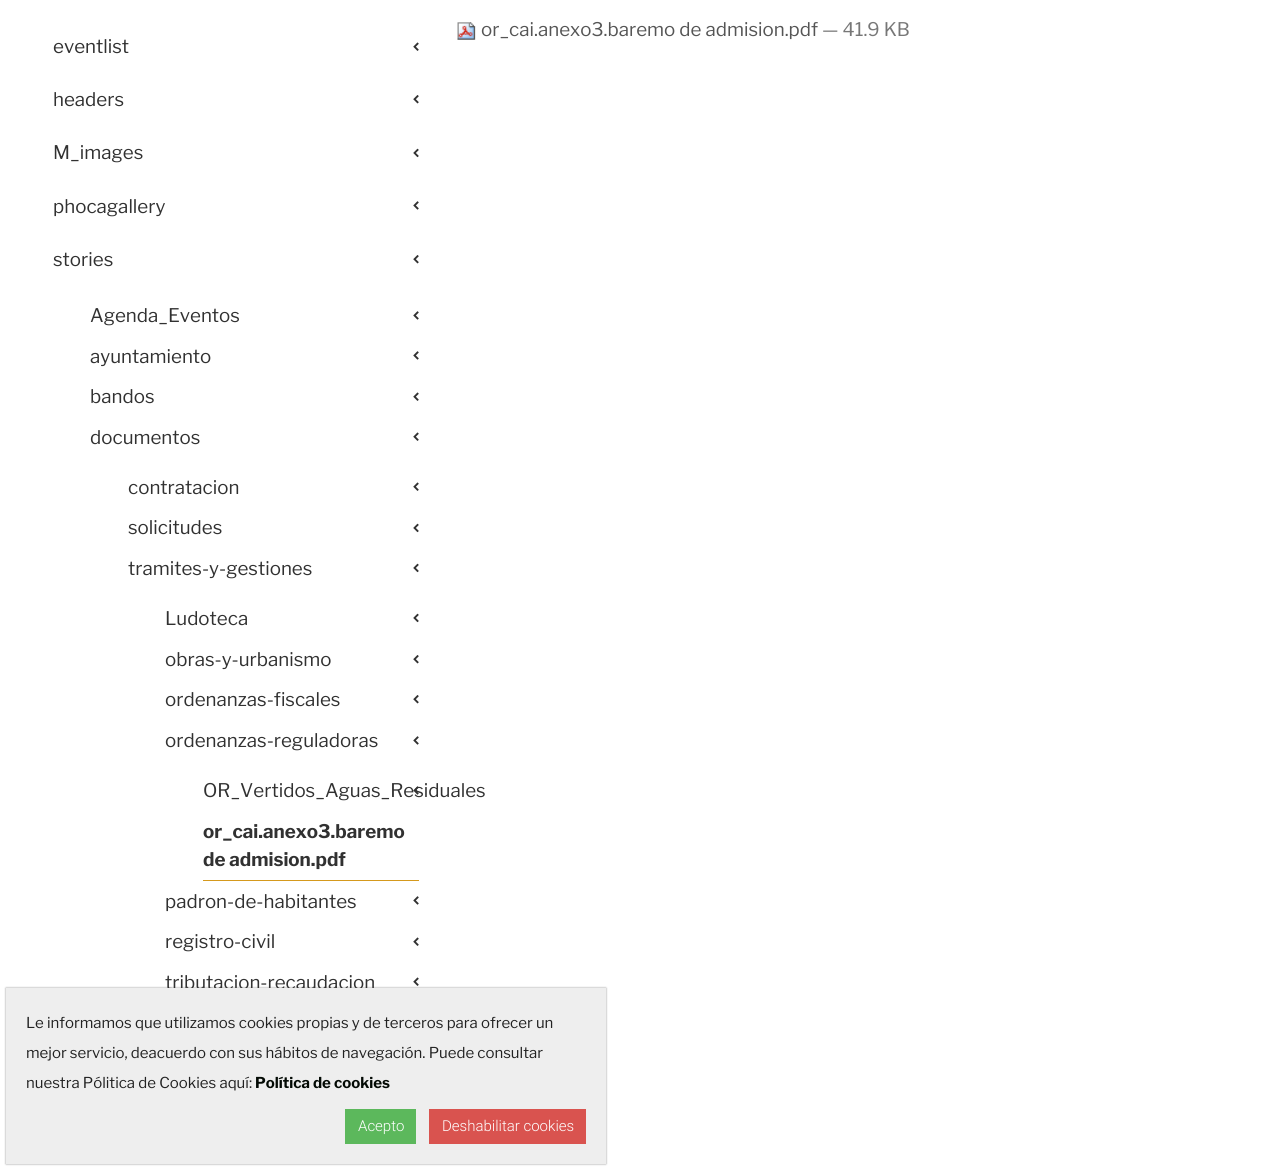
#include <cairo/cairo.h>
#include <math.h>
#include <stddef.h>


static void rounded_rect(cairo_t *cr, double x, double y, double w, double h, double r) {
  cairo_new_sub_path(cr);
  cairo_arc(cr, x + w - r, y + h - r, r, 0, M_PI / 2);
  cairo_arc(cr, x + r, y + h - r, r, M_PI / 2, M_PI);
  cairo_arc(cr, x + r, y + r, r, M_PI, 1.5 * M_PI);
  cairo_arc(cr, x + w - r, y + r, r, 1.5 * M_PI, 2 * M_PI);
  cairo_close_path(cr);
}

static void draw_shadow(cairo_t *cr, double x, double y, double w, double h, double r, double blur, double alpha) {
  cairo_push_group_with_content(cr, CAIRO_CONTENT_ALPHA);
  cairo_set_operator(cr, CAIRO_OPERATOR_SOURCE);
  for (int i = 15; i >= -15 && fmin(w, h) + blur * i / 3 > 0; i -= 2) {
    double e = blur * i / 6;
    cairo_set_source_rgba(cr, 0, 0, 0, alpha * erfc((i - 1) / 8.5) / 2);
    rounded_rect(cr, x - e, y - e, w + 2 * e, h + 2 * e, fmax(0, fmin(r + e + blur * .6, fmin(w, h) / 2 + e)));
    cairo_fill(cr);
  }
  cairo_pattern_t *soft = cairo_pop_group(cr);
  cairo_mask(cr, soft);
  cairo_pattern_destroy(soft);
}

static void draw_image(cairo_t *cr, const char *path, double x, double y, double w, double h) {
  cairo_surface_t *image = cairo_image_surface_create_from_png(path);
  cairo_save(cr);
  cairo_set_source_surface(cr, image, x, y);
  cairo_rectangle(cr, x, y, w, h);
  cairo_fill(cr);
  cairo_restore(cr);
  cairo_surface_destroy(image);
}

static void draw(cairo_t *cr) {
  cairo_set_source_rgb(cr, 1, 1, 1);
  cairo_paint(cr);
  draw_image(cr, "images/1.png", 457, 22, 19, 18);
  draw_image(cr, "images/2.png", 413, 42, 6, 9);
  draw_image(cr, "images/3.png", 413, 95, 6, 9);
  draw_image(cr, "images/4.png", 413, 148, 6, 10);
  draw_image(cr, "images/5.png", 413, 201, 6, 9);
  draw_image(cr, "images/3.png", 413, 255, 6, 9);
  draw_image(cr, "images/5.png", 413, 311, 6, 9);
  draw_image(cr, "images/5.png", 413, 351, 6, 9);
  draw_image(cr, "images/2.png", 413, 392, 6, 9);
  draw_image(cr, "images/2.png", 413, 432, 6, 9);
  draw_image(cr, "images/2.png", 413, 482, 6, 9);
  draw_image(cr, "images/4.png", 413, 523, 6, 10);
  draw_image(cr, "images/4.png", 413, 563, 6, 10);
  draw_image(cr, "images/4.png", 413, 613, 6, 10);
  draw_image(cr, "images/3.png", 413, 655, 6, 9);
  draw_image(cr, "images/3.png", 413, 695, 6, 9);
  draw_image(cr, "images/5.png", 413, 736, 6, 9);
  cairo_set_source_rgb(cr, 213 / 255.0, 153 / 255.0, 29 / 255.0);
  cairo_rectangle(cr, 203, 880, 216, 1);
  cairo_fill(cr);
  draw_image(cr, "images/5.png", 413, 896, 6, 9);
  draw_image(cr, "images/2.png", 413, 937, 6, 9);
  draw_image(cr, "images/2.png", 413, 977, 6, 9);
  cairo_set_source_rgb(cr, 34 / 255.0, 34 / 255.0, 34 / 255.0);
  draw_shadow(cr, 6, 988, 600, 176, 0, 1, 0.5);
  cairo_select_font_face(cr, "Libre Franklin", CAIRO_FONT_SLANT_NORMAL, CAIRO_FONT_WEIGHT_NORMAL);
  cairo_set_font_size(cr, 18.75);
  cairo_set_source_rgb(cr, 85 / 255.0, 85 / 255.0, 85 / 255.0);
  cairo_move_to(cr, 481, 36);
  cairo_show_text(cr, "or_cai.anexo3.baremo de admision.pdf");
  cairo_set_source_rgb(cr, 119 / 255.0, 119 / 255.0, 119 / 255.0);
  cairo_move_to(cr, 822, 36);
  cairo_show_text(cr, "— 41.9 KB");
  cairo_set_source_rgb(cr, 49 / 255.0, 49 / 255.0, 49 / 255.0);
  cairo_move_to(cr, 53, 53);
  cairo_show_text(cr, "eventlist");
  cairo_move_to(cr, 53, 106);
  cairo_show_text(cr, "headers");
  cairo_move_to(cr, 53, 159);
  cairo_show_text(cr, "M_images");
  cairo_move_to(cr, 53, 213);
  cairo_show_text(cr, "phocagallery");
  cairo_move_to(cr, 53, 266);
  cairo_show_text(cr, "stories");
  cairo_move_to(cr, 90, 322);
  cairo_show_text(cr, "Agenda_Eventos");
  cairo_move_to(cr, 90, 363);
  cairo_show_text(cr, "ayuntamiento");
  cairo_move_to(cr, 90, 403);
  cairo_show_text(cr, "bandos");
  cairo_move_to(cr, 90, 444);
  cairo_show_text(cr, "documentos");
  cairo_move_to(cr, 128, 494);
  cairo_show_text(cr, "contratacion");
  cairo_move_to(cr, 128, 534);
  cairo_show_text(cr, "solicitudes");
  cairo_move_to(cr, 128, 575);
  cairo_show_text(cr, "tramites-y-gestiones");
  cairo_move_to(cr, 165, 625);
  cairo_show_text(cr, "Ludoteca");
  cairo_move_to(cr, 165, 666);
  cairo_show_text(cr, "obras-y-urbanismo");
  cairo_move_to(cr, 165, 706);
  cairo_show_text(cr, "ordenanzas-fiscales");
  cairo_move_to(cr, 165, 747);
  cairo_show_text(cr, "ordenanzas-reguladoras");
  cairo_move_to(cr, 203, 797);
  cairo_show_text(cr, "OR_Vertidos_Aguas_Residuales");
  draw_image(cr, "images/6.png", 413, 786, 6, 9);
  cairo_select_font_face(cr, "Libre Franklin", CAIRO_FONT_SLANT_NORMAL, CAIRO_FONT_WEIGHT_BOLD);
  cairo_move_to(cr, 203, 838);
  cairo_show_text(cr, "or_cai.anexo3.baremo");
  cairo_move_to(cr, 203, 866);
  cairo_show_text(cr, "de admision.pdf");
  cairo_select_font_face(cr, "Libre Franklin", CAIRO_FONT_SLANT_NORMAL, CAIRO_FONT_WEIGHT_NORMAL);
  cairo_move_to(cr, 165, 908);
  cairo_show_text(cr, "padron-de-habitantes");
  cairo_move_to(cr, 165, 948);
  cairo_show_text(cr, "registro-civil");
  cairo_move_to(cr, 165, 989);
  cairo_show_text(cr, "tributacion-recaudacion");
  cairo_set_source_rgb(cr, 238 / 255.0, 238 / 255.0, 238 / 255.0);
  cairo_rectangle(cr, 6, 988, 600, 176);
  cairo_fill(cr);
  cairo_set_font_size(cr, 15);
  cairo_set_source_rgb(cr, 34 / 255.0, 34 / 255.0, 34 / 255.0);
  cairo_move_to(cr, 26, 1028);
  cairo_show_text(cr, "Le informamos que utilizamos cookies propias y de terceros para ofrecer un");
  cairo_move_to(cr, 26, 1058);
  cairo_show_text(cr, "mejor servicio, deacuerdo con sus hábitos de navegación. Puede consultar");
  cairo_move_to(cr, 26, 1088);
  cairo_show_text(cr, "nuestra Pólitica de Cookies aquí:");
  cairo_select_font_face(cr, "Libre Franklin", CAIRO_FONT_SLANT_NORMAL, CAIRO_FONT_WEIGHT_BOLD);
  cairo_set_source_rgb(cr, 3 / 255.0, 10 / 255.0, 4 / 255.0);
  cairo_move_to(cr, 255, 1088);
  cairo_show_text(cr, "Política de cookies");
  cairo_set_source_rgb(cr, 92 / 255.0, 184 / 255.0, 92 / 255.0);
  cairo_rectangle(cr, 345, 1109, 71, 35);
  cairo_fill(cr);
  cairo_select_font_face(cr, "Roboto Light", CAIRO_FONT_SLANT_NORMAL, CAIRO_FONT_WEIGHT_NORMAL);
  cairo_set_source_rgb(cr, 1, 1, 1);
  cairo_move_to(cr, 358, 1131);
  cairo_show_text(cr, "Acepto");
  cairo_set_source_rgb(cr, 217 / 255.0, 83 / 255.0, 79 / 255.0);
  cairo_rectangle(cr, 429, 1109, 157, 35);
  cairo_fill(cr);
  cairo_set_source_rgb(cr, 1, 1, 1);
  cairo_move_to(cr, 442, 1131);
  cairo_show_text(cr, "Deshabilitar cookies");
}

int main(void) {
  cairo_surface_t *surface = cairo_image_surface_create(CAIRO_FORMAT_RGB24, 1279, 1170);
  cairo_t *cr = cairo_create(surface);
  cairo_font_options_t *options = cairo_font_options_create();
  cairo_font_options_set_hint_metrics(options, CAIRO_HINT_METRICS_OFF);
  cairo_font_options_set_hint_style(options, CAIRO_HINT_STYLE_NONE);
  cairo_set_font_options(cr, options);
  cairo_set_miter_limit(cr, 4);
  draw(cr);
  cairo_surface_write_to_png(surface, "out.png");
  cairo_font_options_destroy(options);
  cairo_destroy(cr);
  cairo_surface_destroy(surface);
  return 0;
}
